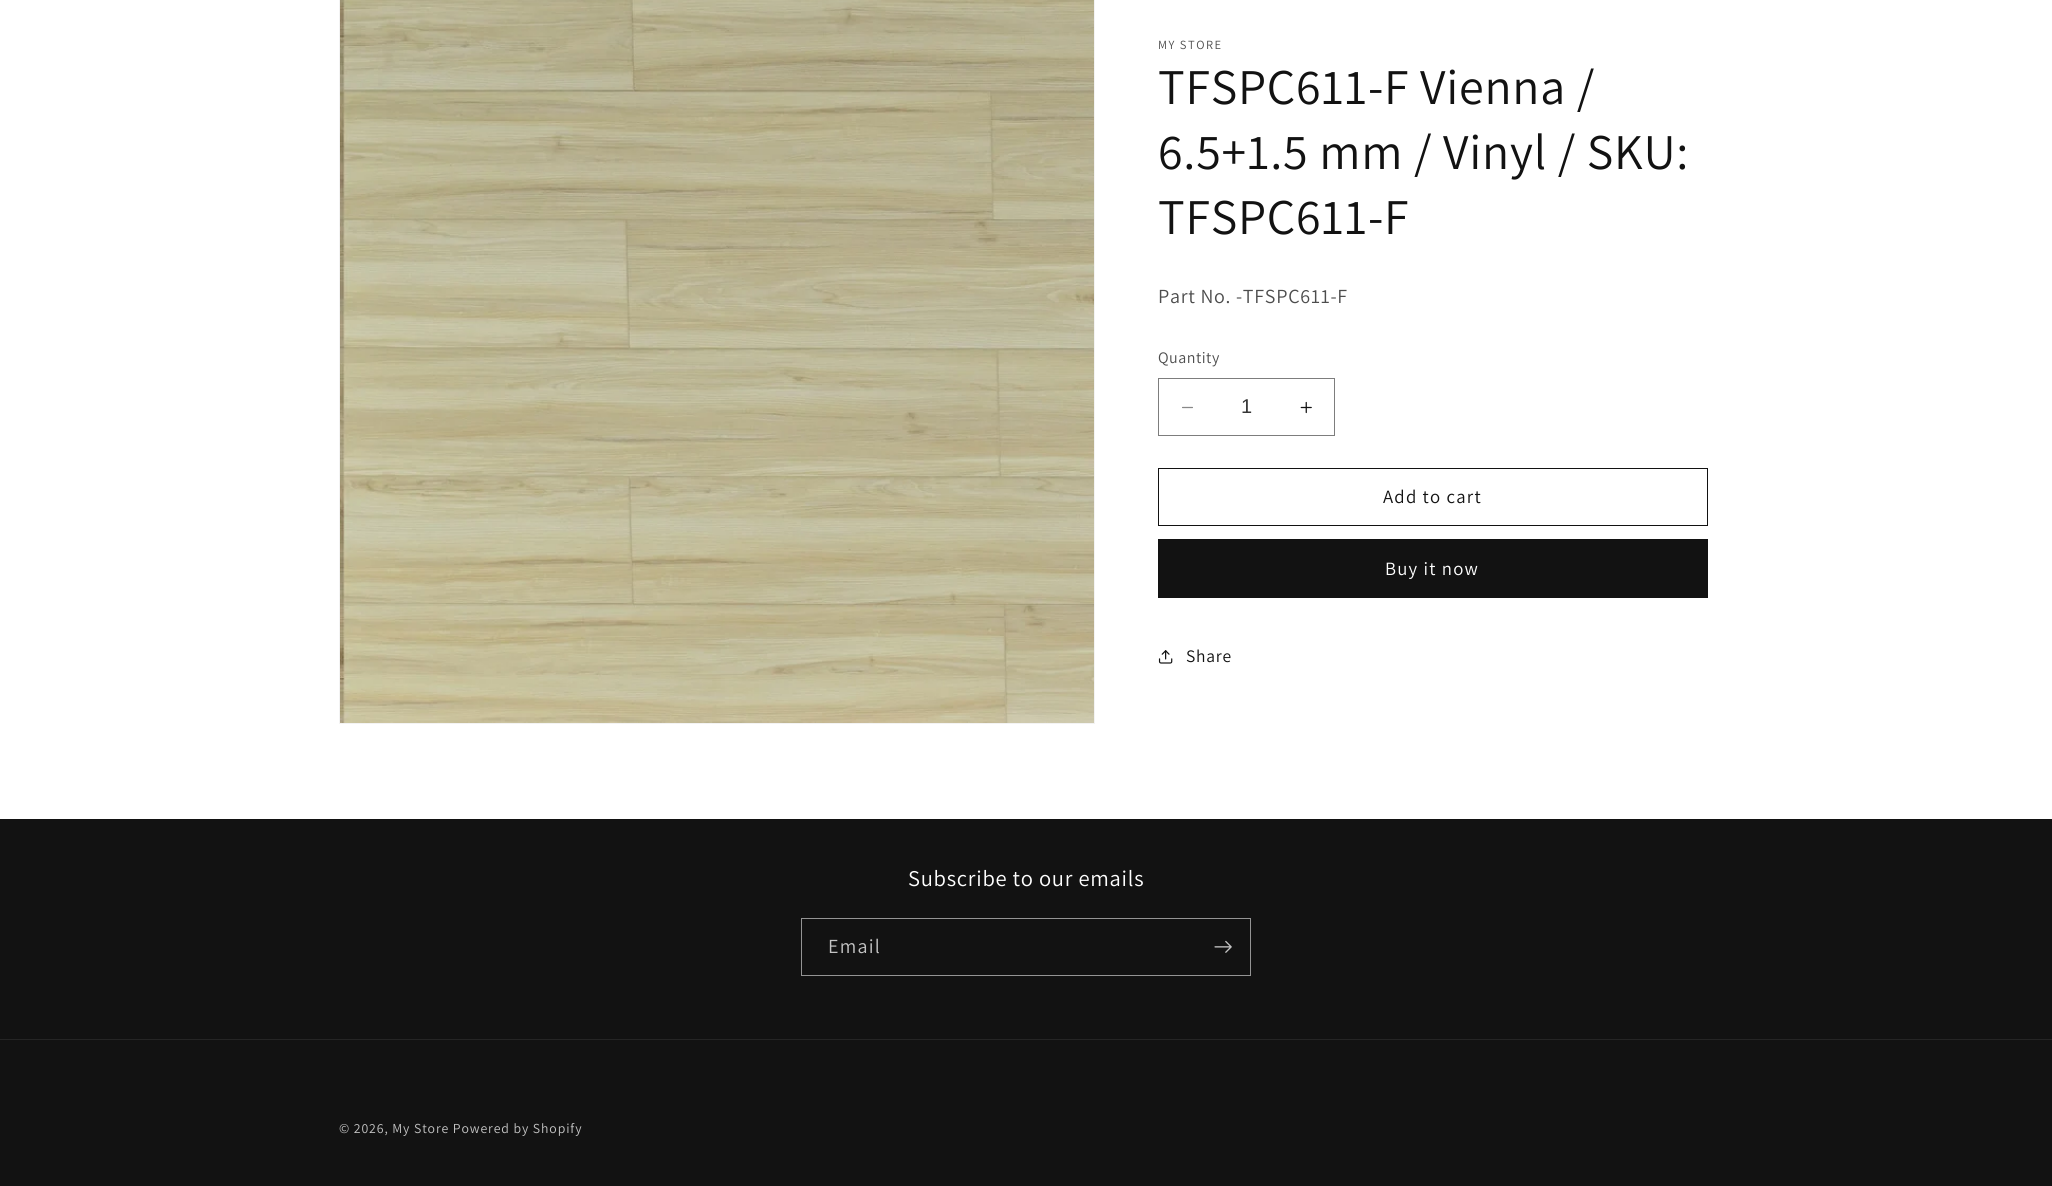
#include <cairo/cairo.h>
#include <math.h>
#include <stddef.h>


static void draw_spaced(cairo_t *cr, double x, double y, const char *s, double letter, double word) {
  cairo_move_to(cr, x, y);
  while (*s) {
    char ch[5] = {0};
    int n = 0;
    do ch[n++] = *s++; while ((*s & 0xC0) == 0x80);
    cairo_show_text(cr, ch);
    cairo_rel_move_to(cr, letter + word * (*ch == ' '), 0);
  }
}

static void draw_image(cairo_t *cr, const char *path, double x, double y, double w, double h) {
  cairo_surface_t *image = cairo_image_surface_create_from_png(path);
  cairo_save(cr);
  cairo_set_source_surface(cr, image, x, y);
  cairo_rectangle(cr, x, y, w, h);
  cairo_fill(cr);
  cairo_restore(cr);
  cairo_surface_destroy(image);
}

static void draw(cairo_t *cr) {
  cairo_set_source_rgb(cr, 1, 1, 1);
  cairo_paint(cr);
  cairo_rectangle(cr, 339.5, -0.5, 755, 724);
  cairo_set_source_rgb(cr, 243 / 255.0, 243 / 255.0, 243 / 255.0);
  cairo_set_line_width(cr, 1);
  cairo_stroke(cr);
  draw_image(cr, "images/1.png", 340, 0, 754, 723);
  draw_image(cr, "images/2.png", 1182, 406, 11, 3);
  draw_image(cr, "images/3.png", 1300, 401, 12, 13);
  cairo_rectangle(cr, 1158.5, 378.5, 176, 57);
  cairo_set_source_rgb(cr, 125 / 255.0, 125 / 255.0, 125 / 255.0);
  cairo_stroke(cr);
  cairo_rectangle(cr, 1158.5, 468.5, 549, 57);
  cairo_set_source_rgb(cr, 18 / 255.0, 18 / 255.0, 18 / 255.0);
  cairo_stroke(cr);
  cairo_rectangle(cr, 1158, 539, 550, 59);
  cairo_fill(cr);
  draw_image(cr, "images/4.png", 1158, 650, 15, 14);
  cairo_rectangle(cr, 0, 819, 2052, 367);
  cairo_fill(cr);
  cairo_rectangle(cr, 801.5, 918.5, 449, 57);
  cairo_set_source_rgb(cr, 148 / 255.0, 148 / 255.0, 148 / 255.0);
  cairo_stroke(cr);
  draw_image(cr, "images/5.png", 1214, 940, 18, 13);
  cairo_set_source_rgb(cr, 37 / 255.0, 37 / 255.0, 37 / 255.0);
  cairo_rectangle(cr, 0, 1039, 2052, 1);
  cairo_fill(cr);
  cairo_select_font_face(cr, "Assistant", CAIRO_FONT_SLANT_NORMAL, CAIRO_FONT_WEIGHT_NORMAL);
  cairo_set_font_size(cr, 12.5);
  cairo_set_source_rgb(cr, 77 / 255.0, 77 / 255.0, 77 / 255.0);
  draw_spaced(cr, 1158, 49, "MY STORE", 1.5, 0);
  cairo_set_font_size(cr, 50);
  cairo_set_source_rgb(cr, 18 / 255.0, 18 / 255.0, 18 / 255.0);
  draw_spaced(cr, 1158, 104, "TFSPC611-F Vienna /", 0.75, 0);
  draw_spaced(cr, 1158, 169, "6.5+1.5 mm / Vinyl / SKU:", 0.75, 0);
  draw_spaced(cr, 1158, 234, "TFSPC611-F", 0.75, 0);
  cairo_set_font_size(cr, 20);
  cairo_set_source_rgb(cr, 77 / 255.0, 77 / 255.0, 77 / 255.0);
  draw_spaced(cr, 1158, 303, "Part No. -TFSPC611-F", 0.75, 0);
  cairo_set_font_size(cr, 16);
  draw_spaced(cr, 1158, 363, "Quantity", 0.5, 0);
  cairo_select_font_face(cr, "Liberation Sans", CAIRO_FONT_SLANT_NORMAL, CAIRO_FONT_WEIGHT_NORMAL);
  cairo_set_font_size(cr, 20);
  cairo_set_source_rgb(cr, 54 / 255.0, 54 / 255.0, 54 / 255.0);
  cairo_move_to(cr, 1241, 413);
  cairo_show_text(cr, "1");
  cairo_select_font_face(cr, "Assistant", CAIRO_FONT_SLANT_NORMAL, CAIRO_FONT_WEIGHT_NORMAL);
  cairo_set_font_size(cr, 18.75);
  cairo_set_source_rgb(cr, 18 / 255.0, 18 / 255.0, 18 / 255.0);
  draw_spaced(cr, 1383, 503, "Add to cart", 1.25, 0);
  cairo_set_source_rgb(cr, 1, 1, 1);
  draw_spaced(cr, 1385, 575, "Buy it now", 1.25, 0);
  cairo_set_font_size(cr, 17.5);
  cairo_set_source_rgb(cr, 18 / 255.0, 18 / 255.0, 18 / 255.0);
  draw_spaced(cr, 1186, 662, "Share", 0.75, 0);
  cairo_set_font_size(cr, 22.5);
  cairo_set_source_rgb(cr, 1, 1, 1);
  draw_spaced(cr, 908, 886, "Subscribe to our emails", 0.75, 0);
  cairo_set_font_size(cr, 20);
  cairo_set_source_rgb(cr, 196 / 255.0, 196 / 255.0, 196 / 255.0);
  draw_spaced(cr, 828, 953, "Email", 1.25, 0);
  cairo_set_font_size(cr, 13.75);
  draw_spaced(cr, 339, 1133, "© 2026, My Store Powered by Shopify", 0.9, 0);
}

int main(void) {
  cairo_surface_t *surface = cairo_image_surface_create(CAIRO_FORMAT_RGB24, 2052, 1186);
  cairo_t *cr = cairo_create(surface);
  cairo_font_options_t *options = cairo_font_options_create();
  cairo_font_options_set_hint_metrics(options, CAIRO_HINT_METRICS_OFF);
  cairo_font_options_set_hint_style(options, CAIRO_HINT_STYLE_NONE);
  cairo_set_font_options(cr, options);
  cairo_set_miter_limit(cr, 4);
  draw(cr);
  cairo_surface_write_to_png(surface, "out.png");
  cairo_font_options_destroy(options);
  cairo_destroy(cr);
  cairo_surface_destroy(surface);
  return 0;
}
